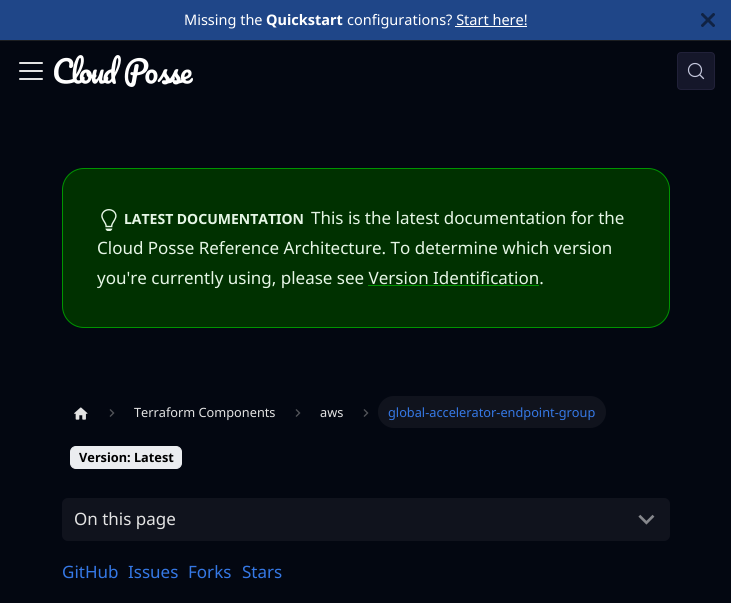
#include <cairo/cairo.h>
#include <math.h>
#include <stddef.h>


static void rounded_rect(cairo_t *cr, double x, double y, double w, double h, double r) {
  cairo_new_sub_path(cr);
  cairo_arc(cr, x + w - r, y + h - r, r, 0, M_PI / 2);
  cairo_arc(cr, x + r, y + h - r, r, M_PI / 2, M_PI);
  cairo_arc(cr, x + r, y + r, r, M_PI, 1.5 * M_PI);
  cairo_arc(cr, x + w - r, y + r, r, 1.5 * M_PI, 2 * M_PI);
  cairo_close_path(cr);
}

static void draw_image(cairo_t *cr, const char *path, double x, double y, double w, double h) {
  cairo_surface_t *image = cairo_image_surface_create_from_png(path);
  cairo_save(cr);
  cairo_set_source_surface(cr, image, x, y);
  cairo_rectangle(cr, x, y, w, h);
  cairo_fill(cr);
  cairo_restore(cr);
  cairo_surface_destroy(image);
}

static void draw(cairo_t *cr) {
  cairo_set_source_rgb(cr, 3 / 255.0, 7 / 255.0, 17 / 255.0);
  cairo_paint(cr);
  cairo_set_source_rgb(cr, 31 / 255.0, 70 / 255.0, 136 / 255.0);
  cairo_rectangle(cr, 0, 0, 731, 40);
  cairo_fill(cr);
  cairo_set_source_rgb(cr, 28 / 255.0, 30 / 255.0, 33 / 255.0);
  cairo_rectangle(cr, 0, 40, 731, 1);
  cairo_fill(cr);
  cairo_set_source_rgb(cr, 1, 1, 1);
  cairo_rectangle(cr, 455, 26, 72, 1);
  cairo_fill(cr);
  cairo_save(cr);
  cairo_rectangle(cr, 701, 13, 14, 14);
  cairo_clip(cr);
  cairo_new_path(cr);
  cairo_move_to(cr, 701.5, 13.5);
  cairo_line_to(cr, 714.5, 26.5);
  cairo_move_to(cr, 714.5, 13.5);
  cairo_line_to(cr, 701.5, 26.5);
  cairo_set_source_rgb(cr, 16 / 255.0, 35 / 255.0, 68 / 255.0);
  cairo_set_line_width(cr, 2.9);
  cairo_stroke(cr);
  cairo_restore(cr);
  draw_image(cr, "images/1.png", 19, 62, 24, 18);
  draw_image(cr, "images/2.png", 54, 55, 139, 32);
  cairo_set_source_rgb(cr, 21 / 255.0, 23 / 255.0, 42 / 255.0);
  rounded_rect(cr, 677.5, 52.5, 37, 37, 3.5);
  cairo_fill_preserve(cr);
  cairo_set_source_rgb(cr, 33 / 255.0, 33 / 255.0, 57 / 255.0);
  cairo_set_line_width(cr, 1);
  cairo_stroke(cr);
  cairo_arc(cr, 695, 70, 6.5, 0, 2 * M_PI);
  cairo_set_source_rgb(cr, 196 / 255.0, 199 / 255.0, 220 / 255.0);
  cairo_set_line_width(cr, 1.2);
  cairo_stroke(cr);
  cairo_new_path(cr);
  cairo_move_to(cr, 703.5, 78.5);
  cairo_line_to(cr, 700, 75);
  cairo_set_line_width(cr, 1.3);
  cairo_set_line_cap(cr, CAIRO_LINE_CAP_ROUND);
  cairo_set_line_join(cr, CAIRO_LINE_JOIN_ROUND);
  cairo_stroke(cr);
  cairo_set_source_rgb(cr, 0, 49 / 255.0, 0);
  rounded_rect(cr, 62.5, 168.5, 607, 159, 21.5);
  cairo_fill_preserve(cr);
  cairo_set_source_rgb(cr, 0, 148 / 255.0, 0);
  cairo_set_line_width(cr, 1);
  cairo_set_line_cap(cr, CAIRO_LINE_CAP_BUTT);
  cairo_set_line_join(cr, CAIRO_LINE_JOIN_MITER);
  cairo_stroke(cr);
  draw_image(cr, "images/3.png", 101, 209, 16, 22);
  draw_image(cr, "images/4.png", 74, 407, 14, 13);
  draw_image(cr, "images/5.png", 109, 409, 6, 8);
  draw_image(cr, "images/5.png", 295, 409, 6, 8);
  draw_image(cr, "images/5.png", 363, 409, 6, 8);
  cairo_set_source_rgb(cr, 16 / 255.0, 19 / 255.0, 29 / 255.0);
  rounded_rect(cr, 378, 396, 228, 32, 16);
  cairo_fill(cr);
  cairo_set_source_rgb(cr, 235 / 255.0, 237 / 255.0, 240 / 255.0);
  rounded_rect(cr, 70.5, 446.5, 111, 22, 5.5);
  cairo_fill_preserve(cr);
  cairo_stroke(cr);
  cairo_set_source_rgb(cr, 16 / 255.0, 19 / 255.0, 29 / 255.0);
  rounded_rect(cr, 62, 498, 608, 43, 6);
  cairo_fill(cr);
  draw_image(cr, "images/6.png", 638, 514, 17, 11);
  cairo_select_font_face(cr, "Noto Sans", CAIRO_FONT_SLANT_NORMAL, CAIRO_FONT_WEIGHT_NORMAL);
  cairo_set_font_size(cr, 14.5);
  cairo_set_source_rgb(cr, 1, 1, 1);
  cairo_move_to(cr, 184, 25);
  cairo_show_text(cr, "Missing the");
  cairo_select_font_face(cr, "Noto Sans", CAIRO_FONT_SLANT_NORMAL, CAIRO_FONT_WEIGHT_BOLD);
  cairo_move_to(cr, 266, 25);
  cairo_show_text(cr, "Quickstart");
  cairo_select_font_face(cr, "Noto Sans", CAIRO_FONT_SLANT_NORMAL, CAIRO_FONT_WEIGHT_NORMAL);
  cairo_move_to(cr, 347, 25);
  cairo_show_text(cr, "configurations? Start here!");
  cairo_select_font_face(cr, "Noto Sans", CAIRO_FONT_SLANT_NORMAL, CAIRO_FONT_WEIGHT_BOLD);
  cairo_set_font_size(cr, 14);
  cairo_set_source_rgb(cr, 230 / 255.0, 246 / 255.0, 230 / 255.0);
  cairo_move_to(cr, 124, 224);
  cairo_show_text(cr, "LATEST DOCUMENTATION");
  cairo_select_font_face(cr, "Noto Sans", CAIRO_FONT_SLANT_NORMAL, CAIRO_FONT_WEIGHT_NORMAL);
  cairo_set_font_size(cr, 17);
  cairo_move_to(cr, 311, 224);
  cairo_show_text(cr, "This is the latest documentation for the");
  cairo_move_to(cr, 97, 254);
  cairo_show_text(cr, "Cloud Posse Reference Architecture. To determine which version");
  cairo_move_to(cr, 97, 284);
  cairo_show_text(cr, "you're currently using, please see Version Identification.");
  cairo_set_source_rgb(cr, 0, 148 / 255.0, 0);
  cairo_rectangle(cr, 368, 285, 171, 1);
  cairo_fill(cr);
  cairo_set_font_size(cr, 12.75);
  cairo_set_source_rgb(cr, 227 / 255.0, 227 / 255.0, 227 / 255.0);
  cairo_move_to(cr, 134, 417);
  cairo_show_text(cr, "Terraform Components");
  cairo_move_to(cr, 320, 417);
  cairo_show_text(cr, "aws");
  cairo_set_source_rgb(cr, 53 / 255.0, 120 / 255.0, 229 / 255.0);
  cairo_move_to(cr, 388, 417);
  cairo_show_text(cr, "global-accelerator-endpoint-group");
  cairo_select_font_face(cr, "Noto Sans", CAIRO_FONT_SLANT_NORMAL, CAIRO_FONT_WEIGHT_BOLD);
  cairo_set_source_rgb(cr, 0, 0, 0);
  cairo_move_to(cr, 79, 462);
  cairo_show_text(cr, "Version: Latest");
  cairo_select_font_face(cr, "Noto Sans", CAIRO_FONT_SLANT_NORMAL, CAIRO_FONT_WEIGHT_NORMAL);
  cairo_set_font_size(cr, 17);
  cairo_set_source_rgb(cr, 227 / 255.0, 227 / 255.0, 227 / 255.0);
  cairo_move_to(cr, 74, 525);
  cairo_show_text(cr, "On this page");
  cairo_set_source_rgb(cr, 53 / 255.0, 120 / 255.0, 229 / 255.0);
  cairo_move_to(cr, 62, 578);
  cairo_show_text(cr, "GitHub");
  cairo_move_to(cr, 128, 578);
  cairo_show_text(cr, "Issues");
  cairo_move_to(cr, 188, 578);
  cairo_show_text(cr, "Forks");
  cairo_move_to(cr, 242, 578);
  cairo_show_text(cr, "Stars");
}

int main(void) {
  cairo_surface_t *surface = cairo_image_surface_create(CAIRO_FORMAT_RGB24, 731, 603);
  cairo_t *cr = cairo_create(surface);
  cairo_font_options_t *options = cairo_font_options_create();
  cairo_font_options_set_hint_metrics(options, CAIRO_HINT_METRICS_OFF);
  cairo_font_options_set_hint_style(options, CAIRO_HINT_STYLE_NONE);
  cairo_set_font_options(cr, options);
  cairo_set_miter_limit(cr, 4);
  draw(cr);
  cairo_surface_write_to_png(surface, "out.png");
  cairo_font_options_destroy(options);
  cairo_destroy(cr);
  cairo_surface_destroy(surface);
  return 0;
}
